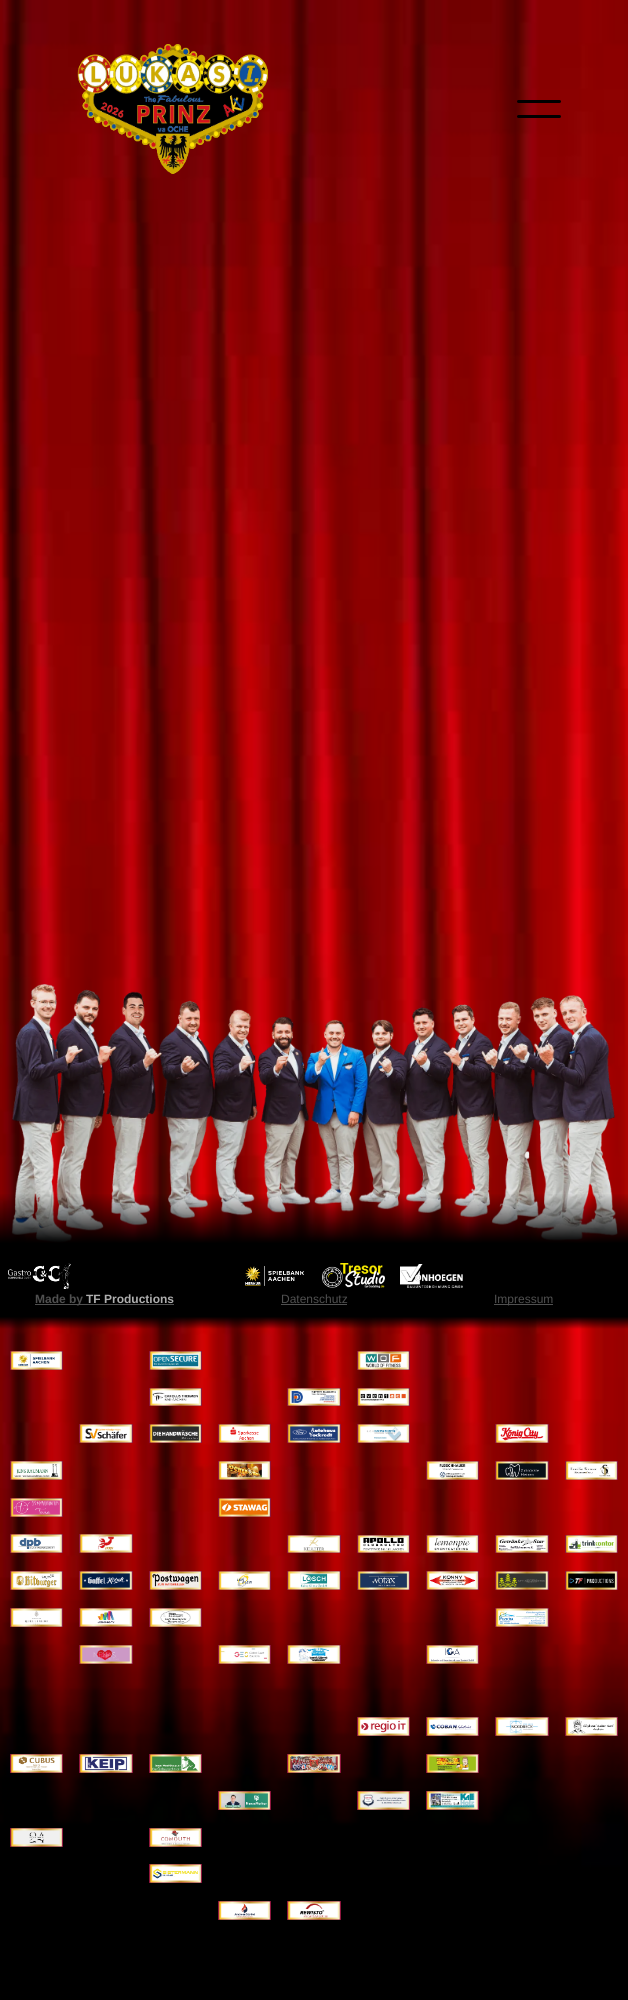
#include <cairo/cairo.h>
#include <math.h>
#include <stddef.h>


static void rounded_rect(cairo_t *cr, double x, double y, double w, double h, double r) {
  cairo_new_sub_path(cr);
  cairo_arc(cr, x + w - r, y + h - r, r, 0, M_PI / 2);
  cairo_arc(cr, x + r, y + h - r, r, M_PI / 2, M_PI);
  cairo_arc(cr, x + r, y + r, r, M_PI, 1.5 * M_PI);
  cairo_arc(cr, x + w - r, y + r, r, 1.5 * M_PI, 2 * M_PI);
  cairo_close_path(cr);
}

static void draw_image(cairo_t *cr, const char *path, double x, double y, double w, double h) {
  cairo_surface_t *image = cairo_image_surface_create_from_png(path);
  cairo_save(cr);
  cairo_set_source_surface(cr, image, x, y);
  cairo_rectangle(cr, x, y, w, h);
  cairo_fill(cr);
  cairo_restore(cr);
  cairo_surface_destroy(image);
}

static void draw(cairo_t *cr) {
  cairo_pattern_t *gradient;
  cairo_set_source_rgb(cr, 1, 1, 1);
  cairo_paint(cr);
  draw_image(cr, "images/1.png", 0, 0, 628, 2000);
  draw_image(cr, "images/2.png", 77, 44, 191, 130);
  draw_image(cr, "images/3.png", 77, 44, 191, 130);
  cairo_set_source_rgb(cr, 0, 0, 0);
  rounded_rect(cr, 517, 100, 44, 3, 1.5);
  cairo_fill(cr);
  rounded_rect(cr, 517, 115, 44, 3, 1.5);
  cairo_fill(cr);
  draw_image(cr, "images/4.png", 11, 984, 607, 259);
  gradient = cairo_pattern_create_linear(314, 1193, 314, 1329);
  cairo_pattern_add_color_stop_rgba(gradient, 0, 0, 0, 0, 0);
  cairo_pattern_add_color_stop_rgba(gradient, 0.37, 0, 0, 0, 1);
  cairo_pattern_add_color_stop_rgba(gradient, 0.91, 0, 0, 0, 1);
  cairo_pattern_add_color_stop_rgba(gradient, 1, 0, 0, 0, 0);
  cairo_set_source(cr, gradient);
  cairo_pattern_destroy(gradient);
  cairo_rectangle(cr, 0, 1194, 628, 135);
  cairo_fill(cr);
  draw_image(cr, "images/5.png", 8, 1263, 63, 26);
  draw_image(cr, "images/6.png", 245, 1266, 59, 20);
  draw_image(cr, "images/7.png", 322, 1263, 63, 25);
  draw_image(cr, "images/8.png", 400, 1264, 63, 24);
  cairo_set_source_rgb(cr, 80 / 255.0, 80 / 255.0, 80 / 255.0);
  cairo_rectangle(cr, 35, 1304, 139, 1);
  cairo_fill(cr);
  cairo_rectangle(cr, 281, 1304, 66, 1);
  cairo_fill(cr);
  cairo_rectangle(cr, 494, 1304, 59, 1);
  cairo_fill(cr);
  draw_image(cr, "images/9.png", 10, 1351, 53, 19);
  draw_image(cr, "images/10.png", 149, 1351, 53, 19);
  draw_image(cr, "images/11.png", 357, 1351, 53, 19);
  draw_image(cr, "images/12.png", 149, 1388, 53, 18);
  draw_image(cr, "images/13.png", 287, 1388, 54, 18);
  draw_image(cr, "images/14.png", 357, 1388, 53, 18);
  draw_image(cr, "images/15.png", 79, 1424, 54, 19);
  draw_image(cr, "images/16.png", 149, 1424, 53, 19);
  draw_image(cr, "images/17.png", 218, 1424, 53, 19);
  draw_image(cr, "images/18.png", 287, 1424, 54, 19);
  draw_image(cr, "images/19.png", 357, 1424, 53, 19);
  draw_image(cr, "images/20.png", 495, 1424, 54, 19);
  draw_image(cr, "images/21.png", 10, 1461, 53, 19);
  draw_image(cr, "images/22.png", 218, 1461, 53, 19);
  draw_image(cr, "images/23.png", 426, 1461, 53, 19);
  draw_image(cr, "images/24.png", 495, 1461, 54, 19);
  draw_image(cr, "images/25.png", 565, 1461, 53, 19);
  draw_image(cr, "images/26.png", 10, 1498, 53, 19);
  draw_image(cr, "images/27.png", 218, 1498, 53, 19);
  draw_image(cr, "images/28.png", 10, 1534, 53, 19);
  draw_image(cr, "images/29.png", 79, 1534, 54, 19);
  draw_image(cr, "images/30.png", 287, 1535, 54, 18);
  draw_image(cr, "images/31.png", 357, 1535, 53, 18);
  draw_image(cr, "images/32.png", 426, 1535, 53, 18);
  draw_image(cr, "images/33.png", 495, 1535, 54, 18);
  draw_image(cr, "images/34.png", 565, 1535, 53, 18);
  draw_image(cr, "images/35.png", 10, 1571, 53, 19);
  draw_image(cr, "images/36.png", 79, 1571, 54, 19);
  draw_image(cr, "images/37.png", 149, 1571, 53, 19);
  draw_image(cr, "images/38.png", 218, 1571, 53, 19);
  draw_image(cr, "images/39.png", 287, 1571, 54, 19);
  draw_image(cr, "images/40.png", 357, 1571, 53, 19);
  draw_image(cr, "images/41.png", 426, 1571, 53, 19);
  draw_image(cr, "images/42.png", 495, 1571, 54, 19);
  draw_image(cr, "images/43.png", 565, 1571, 53, 19);
  draw_image(cr, "images/44.png", 10, 1608, 53, 19);
  draw_image(cr, "images/45.png", 79, 1608, 54, 19);
  draw_image(cr, "images/46.png", 149, 1608, 53, 19);
  draw_image(cr, "images/47.png", 495, 1608, 54, 19);
  draw_image(cr, "images/48.png", 79, 1645, 54, 19);
  draw_image(cr, "images/49.png", 218, 1645, 53, 19);
  draw_image(cr, "images/50.png", 287, 1645, 54, 19);
  draw_image(cr, "images/51.png", 426, 1645, 53, 19);
  draw_image(cr, "images/52.png", 357, 1717, 53, 19);
  draw_image(cr, "images/53.png", 426, 1717, 53, 19);
  draw_image(cr, "images/54.png", 495, 1717, 54, 19);
  draw_image(cr, "images/55.png", 565, 1717, 53, 19);
  draw_image(cr, "images/56.png", 10, 1754, 53, 19);
  draw_image(cr, "images/57.png", 79, 1754, 54, 19);
  draw_image(cr, "images/58.png", 149, 1754, 53, 19);
  draw_image(cr, "images/59.png", 287, 1754, 54, 19);
  draw_image(cr, "images/60.png", 426, 1754, 53, 19);
  draw_image(cr, "images/61.png", 218, 1791, 53, 19);
  draw_image(cr, "images/62.png", 357, 1791, 53, 19);
  draw_image(cr, "images/63.png", 426, 1791, 53, 19);
  draw_image(cr, "images/64.png", 10, 1828, 53, 19);
  draw_image(cr, "images/65.png", 149, 1828, 53, 19);
  draw_image(cr, "images/66.png", 149, 1864, 53, 19);
  draw_image(cr, "images/67.png", 218, 1901, 53, 19);
  draw_image(cr, "images/68.png", 287, 1901, 54, 19);
  cairo_select_font_face(cr, "Liberation Sans", CAIRO_FONT_SLANT_NORMAL, CAIRO_FONT_WEIGHT_BOLD);
  cairo_set_font_size(cr, 12);
  cairo_move_to(cr, 35, 1303);
  cairo_show_text(cr, "Made by");
  cairo_set_source_rgb(cr, 175 / 255.0, 175 / 255.0, 175 / 255.0);
  cairo_move_to(cr, 86, 1303);
  cairo_show_text(cr, "TF Productions");
  cairo_select_font_face(cr, "Liberation Sans", CAIRO_FONT_SLANT_NORMAL, CAIRO_FONT_WEIGHT_NORMAL);
  cairo_set_source_rgb(cr, 80 / 255.0, 80 / 255.0, 80 / 255.0);
  cairo_move_to(cr, 281, 1303);
  cairo_show_text(cr, "Datenschutz");
  cairo_move_to(cr, 494, 1303);
  cairo_show_text(cr, "Impressum");
}

int main(void) {
  cairo_surface_t *surface = cairo_image_surface_create(CAIRO_FORMAT_RGB24, 628, 2000);
  cairo_t *cr = cairo_create(surface);
  cairo_font_options_t *options = cairo_font_options_create();
  cairo_font_options_set_hint_metrics(options, CAIRO_HINT_METRICS_OFF);
  cairo_font_options_set_hint_style(options, CAIRO_HINT_STYLE_NONE);
  cairo_set_font_options(cr, options);
  cairo_set_miter_limit(cr, 4);
  draw(cr);
  cairo_surface_write_to_png(surface, "out.png");
  cairo_font_options_destroy(options);
  cairo_destroy(cr);
  cairo_surface_destroy(surface);
  return 0;
}
